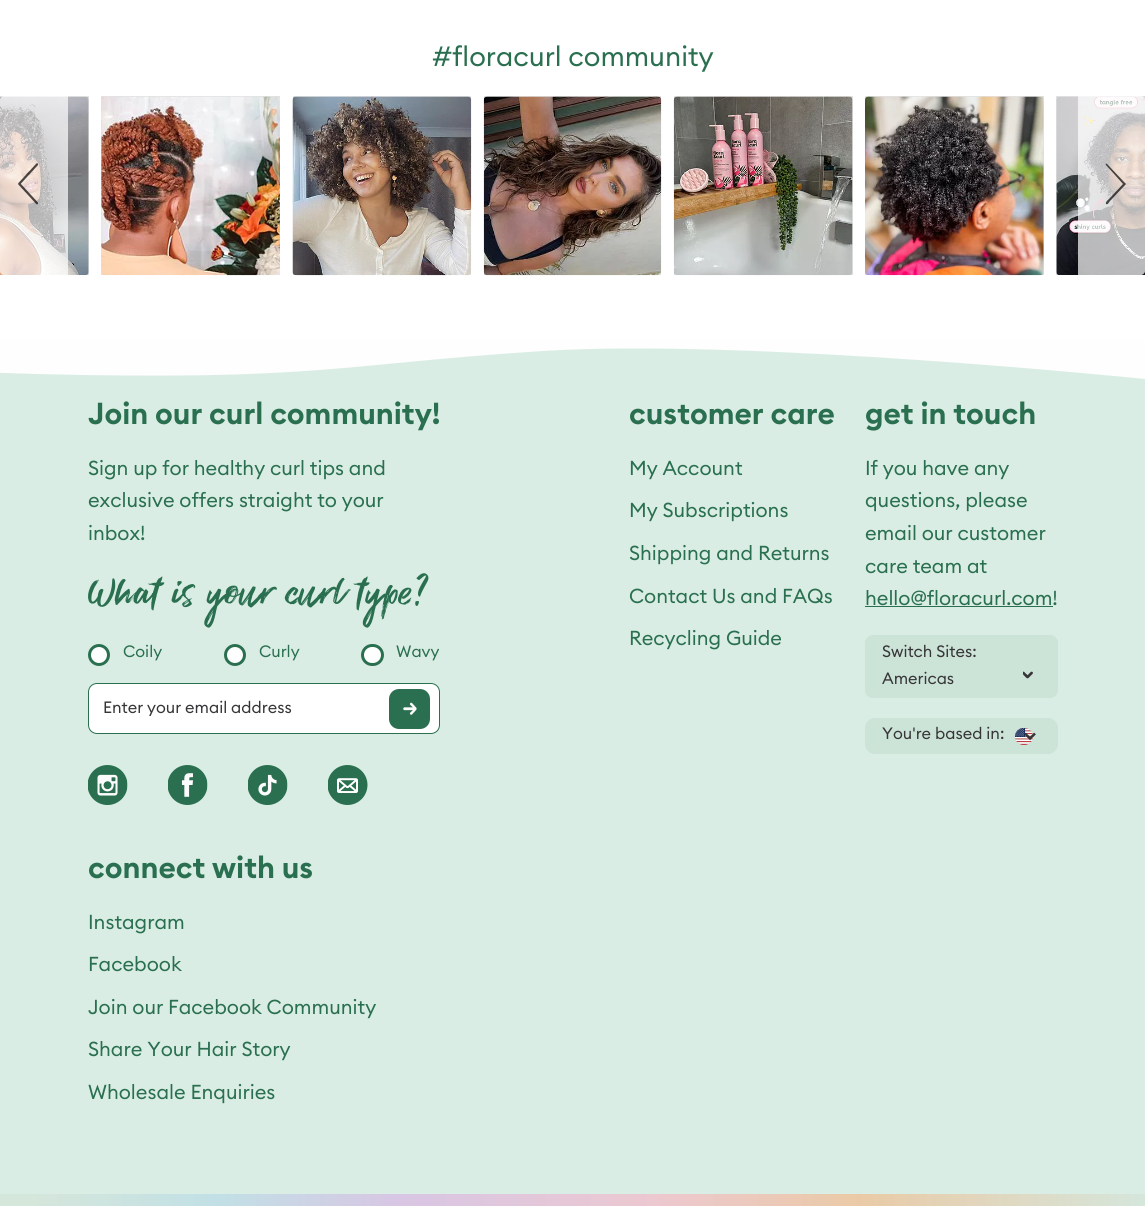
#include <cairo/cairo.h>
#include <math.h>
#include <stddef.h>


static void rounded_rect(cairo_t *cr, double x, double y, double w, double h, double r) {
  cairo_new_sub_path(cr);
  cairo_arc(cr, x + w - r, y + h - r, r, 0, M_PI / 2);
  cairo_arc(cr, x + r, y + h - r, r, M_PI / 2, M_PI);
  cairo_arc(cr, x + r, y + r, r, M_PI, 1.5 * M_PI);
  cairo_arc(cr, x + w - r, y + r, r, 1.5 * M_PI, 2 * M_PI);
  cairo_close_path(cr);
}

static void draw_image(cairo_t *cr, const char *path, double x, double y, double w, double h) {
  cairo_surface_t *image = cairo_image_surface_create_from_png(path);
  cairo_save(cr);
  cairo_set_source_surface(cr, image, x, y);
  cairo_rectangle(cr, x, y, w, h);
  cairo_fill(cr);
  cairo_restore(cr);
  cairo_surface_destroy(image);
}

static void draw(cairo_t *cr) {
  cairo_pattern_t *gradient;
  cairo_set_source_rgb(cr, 218 / 255.0, 237 / 255.0, 228 / 255.0);
  cairo_paint(cr);
  cairo_set_source_rgb(cr, 1, 1, 1);
  cairo_rectangle(cr, 0, 0, 1145, 338);
  cairo_fill(cr);
  cairo_set_source_rgb(cr, 225 / 255.0, 225 / 255.0, 225 / 255.0);
  cairo_rectangle(cr, 0, 96, 89, 179);
  cairo_fill(cr);
  draw_image(cr, "images/1.png", 0, 96, 89, 179);
  cairo_rectangle(cr, 101, 96, 179, 179);
  cairo_fill(cr);
  draw_image(cr, "images/2.png", 101, 96, 179, 180);
  cairo_rectangle(cr, 293, 96, 178, 179);
  cairo_fill(cr);
  draw_image(cr, "images/3.png", 292, 96, 180, 180);
  cairo_rectangle(cr, 484, 96, 177, 179);
  cairo_fill(cr);
  draw_image(cr, "images/4.png", 483, 96, 179, 180);
  cairo_rectangle(cr, 674, 96, 179, 179);
  cairo_fill(cr);
  draw_image(cr, "images/5.png", 673, 96, 180, 180);
  cairo_rectangle(cr, 865, 96, 179, 179);
  cairo_fill(cr);
  draw_image(cr, "images/6.png", 865, 96, 179, 180);
  cairo_rectangle(cr, 1056, 96, 89, 179);
  cairo_fill(cr);
  draw_image(cr, "images/7.png", 1056, 96, 89, 179);
  cairo_set_source_rgba(cr, 1, 1, 1, 0.7);
  cairo_new_path(cr);
  cairo_move_to(cr, 4, 96);
  cairo_line_to(cr, 68, 96);
  cairo_line_to(cr, 68, 275);
  cairo_line_to(cr, 4, 275);
  cairo_curve_to(cr, 2, 275, 0, 273, 0, 271);
  cairo_line_to(cr, 0, 100);
  cairo_curve_to(cr, 0, 98, 2, 96, 4, 96);
  cairo_close_path(cr);
  cairo_fill(cr);
  draw_image(cr, "images/8.png", 18, 163, 21, 42);
  cairo_new_path(cr);
  cairo_move_to(cr, 1078, 96);
  cairo_line_to(cr, 1141, 96);
  cairo_curve_to(cr, 1143, 96, 1145, 98, 1145, 100);
  cairo_line_to(cr, 1145, 271);
  cairo_curve_to(cr, 1145, 273, 1143, 275, 1141, 275);
  cairo_line_to(cr, 1078, 275);
  cairo_close_path(cr);
  cairo_fill(cr);
  cairo_set_source_rgba(cr, 0, 0, 0, 0.7);
  cairo_new_path(cr);
  cairo_move_to(cr, 1125, 183);
  cairo_line_to(cr, 1107, 164);
  cairo_curve_to(cr, 1107, 163, 1105, 164, 1106, 165);
  cairo_line_to(cr, 1123, 184);
  cairo_line_to(cr, 1109, 199);
  cairo_curve_to(cr, 1109, 199, 1105, 202, 1106, 204);
  cairo_curve_to(cr, 1108, 205, 1109, 202, 1110, 201);
  cairo_line_to(cr, 1126, 184);
  cairo_close_path(cr);
  cairo_fill(cr);
  cairo_set_source_rgb(cr, 254 / 255.0, 254 / 255.0, 254 / 255.0);
  cairo_set_fill_rule(cr, CAIRO_FILL_RULE_EVEN_ODD);
  cairo_new_path(cr);
  cairo_move_to(cr, -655, 360);
  cairo_curve_to(cr, -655, 360, -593, 351, -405, 351);
  cairo_curve_to(cr, -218, 351, -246, 366, 36, 374);
  cairo_curve_to(cr, 318, 381, 340, 364, 543, 351);
  cairo_curve_to(cr, 746, 338, 1145, 379, 1145, 379);
  cairo_line_to(cr, 1145, 338);
  cairo_line_to(cr, -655, 338);
  cairo_close_path(cr);
  cairo_fill(cr);
  cairo_arc(cr, 99, 655, 9.5, 0, 2 * M_PI);
  cairo_fill_preserve(cr);
  cairo_set_source_rgb(cr, 42 / 255.0, 112 / 255.0, 80 / 255.0);
  cairo_set_line_width(cr, 3);
  cairo_stroke(cr);
  cairo_set_source_rgb(cr, 254 / 255.0, 254 / 255.0, 254 / 255.0);
  cairo_arc(cr, 235, 655, 9.5, 0, 2 * M_PI);
  cairo_fill_preserve(cr);
  cairo_set_source_rgb(cr, 42 / 255.0, 112 / 255.0, 80 / 255.0);
  cairo_stroke(cr);
  cairo_set_source_rgb(cr, 254 / 255.0, 254 / 255.0, 254 / 255.0);
  rounded_rect(cr, 362.5, 645.5, 20, 19, 9.5);
  cairo_fill_preserve(cr);
  cairo_set_source_rgb(cr, 42 / 255.0, 112 / 255.0, 80 / 255.0);
  cairo_stroke(cr);
  cairo_set_source_rgb(cr, 1, 1, 1);
  rounded_rect(cr, 88.5, 683.5, 351, 50, 8.5);
  cairo_fill_preserve(cr);
  cairo_set_source_rgb(cr, 42 / 255.0, 112 / 255.0, 80 / 255.0);
  cairo_set_line_width(cr, 1);
  cairo_stroke(cr);
  rounded_rect(cr, 389, 689, 41, 40, 10);
  cairo_fill(cr);
  draw_image(cr, "images/9.png", 403, 702, 14, 13);
  draw_image(cr, "images/10.png", 88, 765, 40, 40);
  draw_image(cr, "images/11.png", 168, 765, 40, 40);
  draw_image(cr, "images/12.png", 248, 765, 40, 40);
  draw_image(cr, "images/13.png", 328, 765, 40, 40);
  cairo_rectangle(cr, 865, 606, 188, 1);
  cairo_fill(cr);
  cairo_set_source_rgb(cr, 204 / 255.0, 227 / 255.0, 216 / 255.0);
  rounded_rect(cr, 865, 635, 193, 63, 8);
  cairo_fill(cr);
  draw_image(cr, "images/14.png", 1023, 671, 10, 8);
  rounded_rect(cr, 865, 718, 193, 36, 10);
  cairo_fill(cr);
  draw_image(cr, "images/15.png", 1015, 728, 18, 17);
  cairo_new_path(cr);
  cairo_move_to(cr, 1025, 733.5);
  cairo_line_to(cr, 1030, 738.5);
  cairo_line_to(cr, 1035, 733.5);
  cairo_set_source_rgb(cr, 54 / 255.0, 53 / 255.0, 55 / 255.0);
  cairo_set_line_width(cr, 2.5);
  cairo_stroke(cr);
  gradient = cairo_pattern_create_linear(0, 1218, 1145, 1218);
  cairo_pattern_add_color_stop_rgba(gradient, 0.03, 213 / 255.0, 230 / 255.0, 219 / 255.0, 1);
  cairo_pattern_add_color_stop_rgba(gradient, 0.19, 193 / 255.0, 224 / 255.0, 229 / 255.0, 1);
  cairo_pattern_add_color_stop_rgba(gradient, 0.35, 216 / 255.0, 198 / 255.0, 228 / 255.0, 1);
  cairo_pattern_add_color_stop_rgba(gradient, 0.57, 236 / 255.0, 200 / 255.0, 208 / 255.0, 1);
  cairo_pattern_add_color_stop_rgba(gradient, 0.75, 234 / 255.0, 202 / 255.0, 166 / 255.0, 1);
  cairo_pattern_add_color_stop_rgba(gradient, 1, 213 / 255.0, 230 / 255.0, 219 / 255.0, 1);
  cairo_set_source(cr, gradient);
  cairo_pattern_destroy(gradient);
  cairo_rectangle(cr, 0, 1194, 1145, 12);
  cairo_fill(cr);
  cairo_select_font_face(cr, "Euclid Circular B", CAIRO_FONT_SLANT_NORMAL, CAIRO_FONT_WEIGHT_NORMAL);
  cairo_set_font_size(cr, 27.5);
  cairo_set_source_rgb(cr, 42 / 255.0, 112 / 255.0, 80 / 255.0);
  cairo_move_to(cr, 432, 66);
  cairo_show_text(cr, "#floracurl community");
  cairo_select_font_face(cr, "Euclid Circular B SemiBold", CAIRO_FONT_SLANT_NORMAL, CAIRO_FONT_WEIGHT_NORMAL);
  cairo_set_font_size(cr, 30);
  cairo_move_to(cr, 88, 424);
  cairo_show_text(cr, "Join our curl community!");
  cairo_select_font_face(cr, "Euclid Circular B", CAIRO_FONT_SLANT_NORMAL, CAIRO_FONT_WEIGHT_NORMAL);
  cairo_set_font_size(cr, 20);
  cairo_move_to(cr, 88, 475);
  cairo_show_text(cr, "Sign up for healthy curl tips and");
  cairo_move_to(cr, 88, 507);
  cairo_show_text(cr, "exclusive offers straight to your");
  cairo_move_to(cr, 88, 540);
  cairo_show_text(cr, "inbox!");
  cairo_select_font_face(cr, "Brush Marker", CAIRO_FONT_SLANT_NORMAL, CAIRO_FONT_WEIGHT_NORMAL);
  cairo_set_font_size(cr, 50);
  cairo_move_to(cr, 88, 603);
  cairo_show_text(cr, "What is your curl type?");
  cairo_select_font_face(cr, "Euclid Circular B", CAIRO_FONT_SLANT_NORMAL, CAIRO_FONT_WEIGHT_NORMAL);
  cairo_set_font_size(cr, 16.25);
  cairo_move_to(cr, 123, 657);
  cairo_show_text(cr, "Coily");
  cairo_move_to(cr, 259, 657);
  cairo_show_text(cr, "Curly");
  cairo_move_to(cr, 396, 657);
  cairo_show_text(cr, "Wavy");
  cairo_save(cr);
  cairo_set_fill_rule(cr, CAIRO_FILL_RULE_WINDING);
  cairo_rectangle(cr, 103, 700, 322, 16);
  cairo_clip(cr);
  cairo_set_source_rgb(cr, 54 / 255.0, 53 / 255.0, 55 / 255.0);
  cairo_move_to(cr, 103, 713);
  cairo_show_text(cr, "Enter your email address");
  cairo_restore(cr);
  cairo_select_font_face(cr, "Euclid Circular B SemiBold", CAIRO_FONT_SLANT_NORMAL, CAIRO_FONT_WEIGHT_NORMAL);
  cairo_set_font_size(cr, 30);
  cairo_move_to(cr, 629, 424);
  cairo_show_text(cr, "customer care");
  cairo_select_font_face(cr, "Euclid Circular B", CAIRO_FONT_SLANT_NORMAL, CAIRO_FONT_WEIGHT_NORMAL);
  cairo_set_font_size(cr, 20);
  cairo_move_to(cr, 629, 475);
  cairo_show_text(cr, "My Account");
  cairo_move_to(cr, 629, 517);
  cairo_show_text(cr, "My Subscriptions");
  cairo_move_to(cr, 629, 560);
  cairo_show_text(cr, "Shipping and Returns");
  cairo_move_to(cr, 629, 603);
  cairo_show_text(cr, "Contact Us and FAQs");
  cairo_move_to(cr, 629, 645);
  cairo_show_text(cr, "Recycling Guide");
  cairo_select_font_face(cr, "Euclid Circular B SemiBold", CAIRO_FONT_SLANT_NORMAL, CAIRO_FONT_WEIGHT_NORMAL);
  cairo_set_font_size(cr, 30);
  cairo_move_to(cr, 88, 878);
  cairo_show_text(cr, "connect with us");
  cairo_select_font_face(cr, "Euclid Circular B", CAIRO_FONT_SLANT_NORMAL, CAIRO_FONT_WEIGHT_NORMAL);
  cairo_set_font_size(cr, 20);
  cairo_move_to(cr, 88, 929);
  cairo_show_text(cr, "Instagram");
  cairo_move_to(cr, 88, 971);
  cairo_show_text(cr, "Facebook");
  cairo_move_to(cr, 88, 1014);
  cairo_show_text(cr, "Join our Facebook Community");
  cairo_move_to(cr, 88, 1056);
  cairo_show_text(cr, "Share Your Hair Story");
  cairo_move_to(cr, 88, 1099);
  cairo_show_text(cr, "Wholesale Enquiries");
  cairo_select_font_face(cr, "Euclid Circular B SemiBold", CAIRO_FONT_SLANT_NORMAL, CAIRO_FONT_WEIGHT_NORMAL);
  cairo_set_font_size(cr, 30);
  cairo_move_to(cr, 865, 424);
  cairo_show_text(cr, "get in touch");
  cairo_select_font_face(cr, "Euclid Circular B", CAIRO_FONT_SLANT_NORMAL, CAIRO_FONT_WEIGHT_NORMAL);
  cairo_set_font_size(cr, 20);
  cairo_move_to(cr, 865, 475);
  cairo_show_text(cr, "If you have any");
  cairo_move_to(cr, 865, 507);
  cairo_show_text(cr, "questions, please");
  cairo_move_to(cr, 865, 540);
  cairo_show_text(cr, "email our customer");
  cairo_move_to(cr, 865, 573);
  cairo_show_text(cr, "care team at");
  cairo_move_to(cr, 865, 605);
  cairo_show_text(cr, "hello@floracurl.com!");
  cairo_set_font_size(cr, 16.25);
  cairo_set_source_rgb(cr, 54 / 255.0, 53 / 255.0, 55 / 255.0);
  cairo_move_to(cr, 882, 657);
  cairo_show_text(cr, "Switch Sites:");
  cairo_move_to(cr, 882, 684);
  cairo_show_text(cr, "Americas");
  cairo_move_to(cr, 882, 739);
  cairo_show_text(cr, "You're based in:");
}

int main(void) {
  cairo_surface_t *surface = cairo_image_surface_create(CAIRO_FORMAT_RGB24, 1145, 1206);
  cairo_t *cr = cairo_create(surface);
  cairo_font_options_t *options = cairo_font_options_create();
  cairo_font_options_set_hint_metrics(options, CAIRO_HINT_METRICS_OFF);
  cairo_font_options_set_hint_style(options, CAIRO_HINT_STYLE_NONE);
  cairo_set_font_options(cr, options);
  cairo_set_miter_limit(cr, 4);
  draw(cr);
  cairo_surface_write_to_png(surface, "out.png");
  cairo_font_options_destroy(options);
  cairo_destroy(cr);
  cairo_surface_destroy(surface);
  return 0;
}
